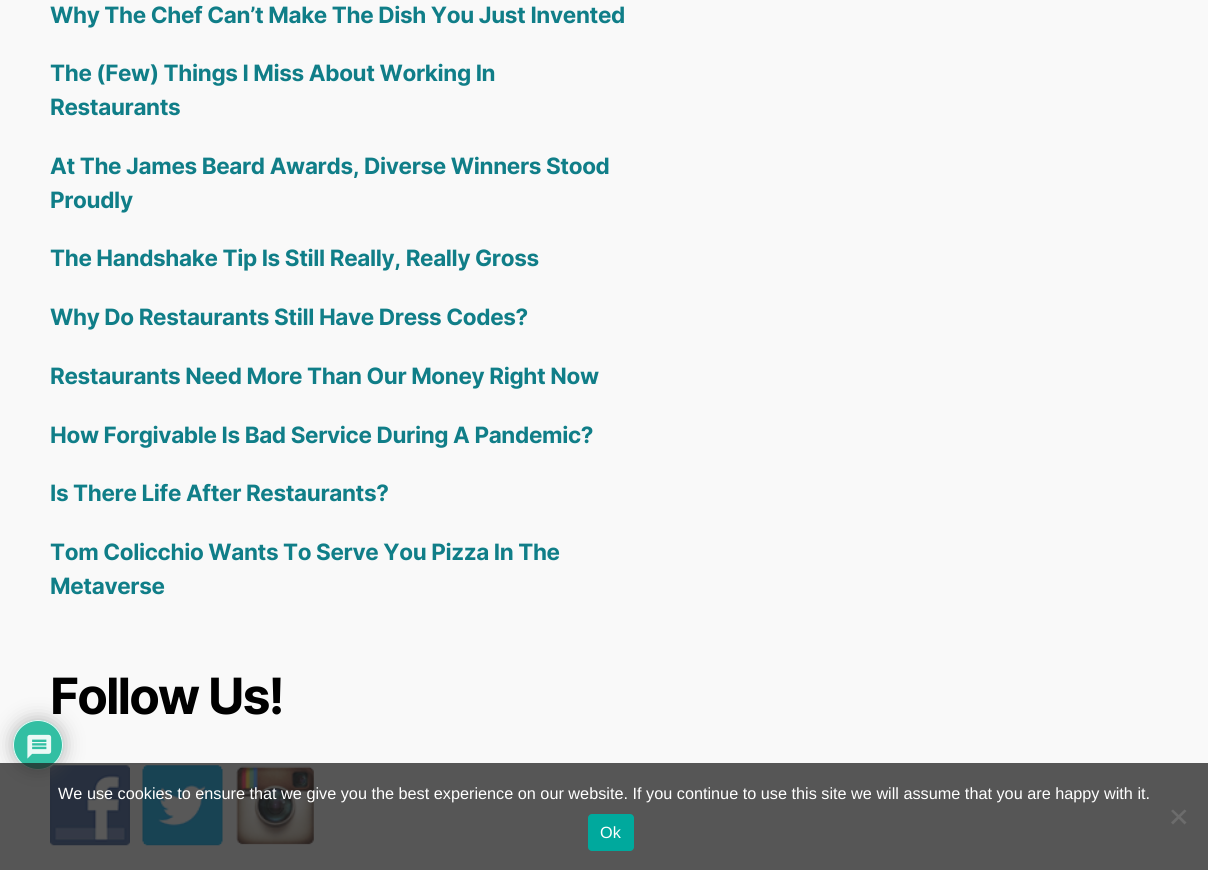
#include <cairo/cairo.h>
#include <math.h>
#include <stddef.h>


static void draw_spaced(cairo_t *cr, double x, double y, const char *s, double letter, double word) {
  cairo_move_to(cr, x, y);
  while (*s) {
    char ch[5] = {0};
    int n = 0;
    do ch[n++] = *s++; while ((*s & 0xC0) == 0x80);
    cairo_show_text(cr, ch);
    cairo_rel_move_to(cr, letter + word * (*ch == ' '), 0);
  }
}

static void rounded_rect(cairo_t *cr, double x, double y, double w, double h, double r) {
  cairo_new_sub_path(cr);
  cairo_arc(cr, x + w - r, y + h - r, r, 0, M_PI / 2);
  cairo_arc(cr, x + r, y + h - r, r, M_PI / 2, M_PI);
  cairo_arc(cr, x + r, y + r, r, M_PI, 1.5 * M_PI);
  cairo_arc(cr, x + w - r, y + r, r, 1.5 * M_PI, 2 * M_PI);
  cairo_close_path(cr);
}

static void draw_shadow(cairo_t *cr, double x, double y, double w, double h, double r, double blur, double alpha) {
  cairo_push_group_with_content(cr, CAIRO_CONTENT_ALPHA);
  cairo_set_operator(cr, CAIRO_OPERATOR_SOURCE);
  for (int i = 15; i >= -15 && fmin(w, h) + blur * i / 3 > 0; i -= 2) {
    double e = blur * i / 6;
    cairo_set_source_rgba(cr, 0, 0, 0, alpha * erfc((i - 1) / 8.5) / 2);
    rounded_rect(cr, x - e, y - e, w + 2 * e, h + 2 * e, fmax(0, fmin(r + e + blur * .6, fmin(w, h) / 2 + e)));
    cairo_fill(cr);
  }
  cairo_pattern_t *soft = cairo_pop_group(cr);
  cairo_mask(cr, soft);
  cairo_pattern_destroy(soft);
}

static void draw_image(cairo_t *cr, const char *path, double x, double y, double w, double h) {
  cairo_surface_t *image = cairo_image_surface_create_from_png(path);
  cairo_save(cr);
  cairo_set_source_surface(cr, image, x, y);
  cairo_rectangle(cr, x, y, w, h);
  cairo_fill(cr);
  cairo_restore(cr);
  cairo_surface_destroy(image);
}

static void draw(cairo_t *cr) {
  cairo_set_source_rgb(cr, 249 / 255.0, 249 / 255.0, 249 / 255.0);
  cairo_paint(cr);
  draw_image(cr, "images/1.png", 50, 765, 80, 81);
  draw_image(cr, "images/2.png", 142, 765, 81, 81);
  draw_image(cr, "images/3.png", 236, 766, 78, 79);
  cairo_save(cr);
  cairo_set_fill_rule(cr, CAIRO_FILL_RULE_EVEN_ODD);
  cairo_new_path(cr);
  cairo_move_to(cr, 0, 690);
  cairo_line_to(cr, 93, 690);
  cairo_line_to(cr, 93, 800);
  cairo_line_to(cr, 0, 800);
  cairo_close_path(cr);
  cairo_move_to(cr, 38, 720);
  cairo_curve_to(cr, 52, 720, 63, 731, 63, 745);
  cairo_curve_to(cr, 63, 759, 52, 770, 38, 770);
  cairo_curve_to(cr, 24, 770, 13, 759, 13, 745);
  cairo_curve_to(cr, 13, 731, 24, 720, 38, 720);
  cairo_close_path(cr);
  cairo_clip(cr);
  cairo_set_source_rgb(cr, 170 / 255.0, 170 / 255.0, 170 / 255.0);
  draw_shadow(cr, 13, 720, 50, 50, 25, 9.5, 0.9);
  cairo_restore(cr);
  cairo_set_source_rgba(cr, 29 / 255.0, 185 / 255.0, 154 / 255.0, 0.9);
  cairo_arc(cr, 38, 745, 25, 0, 2 * M_PI);
  cairo_fill(cr);
  cairo_arc(cr, 38, 745, 24.5, 0, 2 * M_PI);
  cairo_set_source_rgba(cr, 1, 1, 1, 0.9);
  cairo_set_line_width(cr, 1);
  cairo_stroke(cr);
  draw_image(cr, "images/4.png", 27, 734, 25, 25);
  cairo_set_source_rgba(cr, 33 / 255.0, 33 / 255.0, 33 / 255.0, 0.75);
  cairo_rectangle(cr, 0, 763, 1208, 107);
  cairo_fill(cr);
  cairo_set_source_rgb(cr, 108 / 255.0, 108 / 255.0, 108 / 255.0);
  cairo_new_path(cr);
  cairo_move_to(cr, 1184.5, 809.5);
  cairo_line_to(cr, 1186.5, 811);
  cairo_line_to(cr, 1173, 824.5);
  cairo_line_to(cr, 1171, 822.5);
  cairo_close_path(cr);
  cairo_fill(cr);
  cairo_new_path(cr);
  cairo_move_to(cr, 1171, 811);
  cairo_line_to(cr, 1173, 809.5);
  cairo_line_to(cr, 1186.5, 822.5);
  cairo_line_to(cr, 1184.5, 824.5);
  cairo_close_path(cr);
  cairo_fill(cr);
  cairo_set_source_rgb(cr, 0, 169 / 255.0, 157 / 255.0);
  rounded_rect(cr, 588, 814, 46, 37, 4);
  cairo_fill(cr);
  cairo_select_font_face(cr, "Inter", CAIRO_FONT_SLANT_NORMAL, CAIRO_FONT_WEIGHT_BOLD);
  cairo_set_font_size(cr, 22.5);
  cairo_set_source_rgb(cr, 16 / 255.0, 126 / 255.0, 136 / 255.0);
  draw_spaced(cr, 50, 23, "Why The Chef Can’t Make The Dish You Just Invented", -0.35, 0);
  draw_spaced(cr, 50, 81, "The (Few) Things I Miss About Working In", -0.35, 0);
  draw_spaced(cr, 50, 115, "Restaurants", -0.35, 0);
  draw_spaced(cr, 50, 174, "At The James Beard Awards, Diverse Winners Stood", -0.35, 0);
  draw_spaced(cr, 50, 208, "Proudly", -0.35, 0);
  draw_spaced(cr, 50, 266, "The Handshake Tip Is Still Really, Really Gross", -0.35, 0);
  draw_spaced(cr, 50, 325, "Why Do Restaurants Still Have Dress Codes?", -0.35, 0);
  draw_spaced(cr, 50, 384, "Restaurants Need More Than Our Money Right Now", -0.35, 0);
  draw_spaced(cr, 50, 443, "How Forgivable Is Bad Service During A Pandemic?", -0.35, 0);
  draw_spaced(cr, 50, 501, "Is There Life After Restaurants?", -0.35, 0);
  draw_spaced(cr, 50, 560, "Tom Colicchio Wants To Serve You Pizza In The", -0.35, 0);
  draw_spaced(cr, 50, 594, "Metaverse", -0.35, 0);
  cairo_set_font_size(cr, 50);
  cairo_set_source_rgb(cr, 0, 0, 0);
  draw_spaced(cr, 50, 714, "Follow Us!", -2, 0);
  cairo_select_font_face(cr, "Liberation Sans", CAIRO_FONT_SLANT_NORMAL, CAIRO_FONT_WEIGHT_NORMAL);
  cairo_set_font_size(cr, 16.25);
  cairo_set_source_rgb(cr, 1, 1, 1);
  cairo_move_to(cr, 58, 799);
  cairo_show_text(cr, "We use cookies to ensure that we give you the best experience on our website. If you continue to use this site we will assume that you are happy with it.");
  cairo_move_to(cr, 600, 838);
  cairo_show_text(cr, "Ok");
}

int main(void) {
  cairo_surface_t *surface = cairo_image_surface_create(CAIRO_FORMAT_RGB24, 1208, 870);
  cairo_t *cr = cairo_create(surface);
  cairo_font_options_t *options = cairo_font_options_create();
  cairo_font_options_set_hint_metrics(options, CAIRO_HINT_METRICS_OFF);
  cairo_font_options_set_hint_style(options, CAIRO_HINT_STYLE_NONE);
  cairo_set_font_options(cr, options);
  cairo_set_miter_limit(cr, 4);
  draw(cr);
  cairo_surface_write_to_png(surface, "out.png");
  cairo_font_options_destroy(options);
  cairo_destroy(cr);
  cairo_surface_destroy(surface);
  return 0;
}
